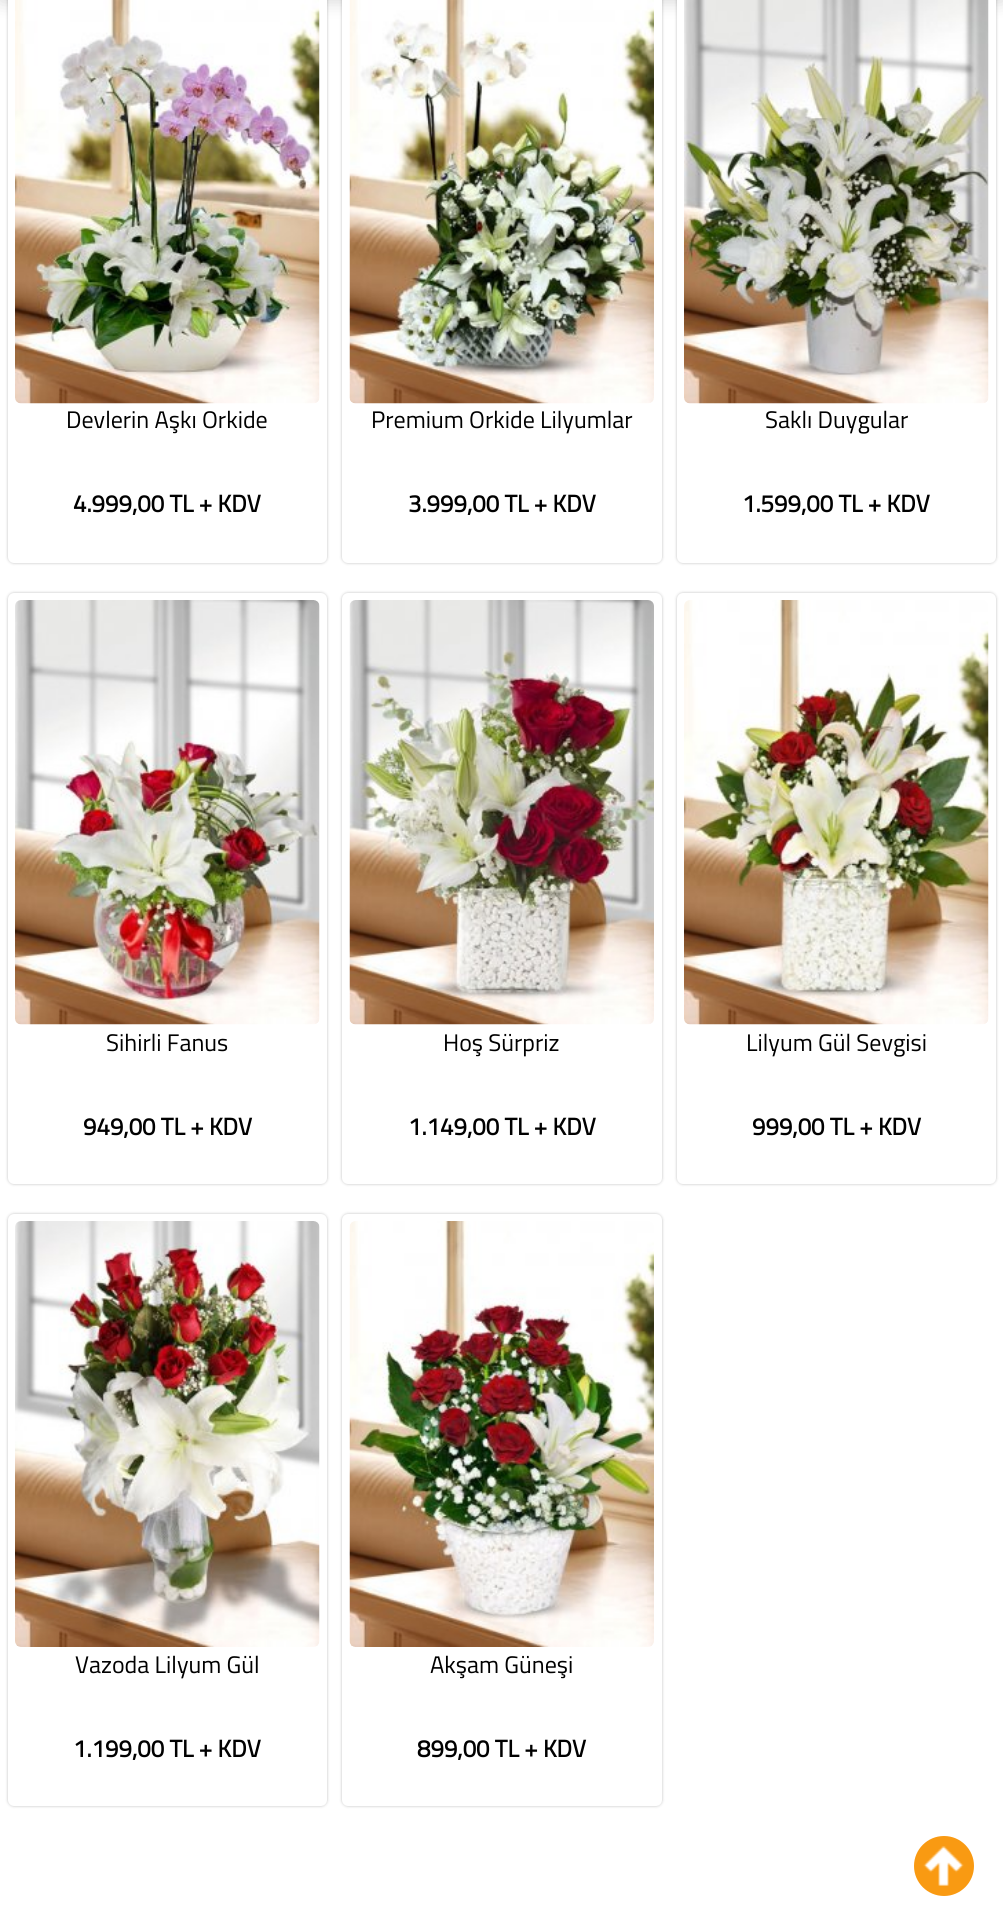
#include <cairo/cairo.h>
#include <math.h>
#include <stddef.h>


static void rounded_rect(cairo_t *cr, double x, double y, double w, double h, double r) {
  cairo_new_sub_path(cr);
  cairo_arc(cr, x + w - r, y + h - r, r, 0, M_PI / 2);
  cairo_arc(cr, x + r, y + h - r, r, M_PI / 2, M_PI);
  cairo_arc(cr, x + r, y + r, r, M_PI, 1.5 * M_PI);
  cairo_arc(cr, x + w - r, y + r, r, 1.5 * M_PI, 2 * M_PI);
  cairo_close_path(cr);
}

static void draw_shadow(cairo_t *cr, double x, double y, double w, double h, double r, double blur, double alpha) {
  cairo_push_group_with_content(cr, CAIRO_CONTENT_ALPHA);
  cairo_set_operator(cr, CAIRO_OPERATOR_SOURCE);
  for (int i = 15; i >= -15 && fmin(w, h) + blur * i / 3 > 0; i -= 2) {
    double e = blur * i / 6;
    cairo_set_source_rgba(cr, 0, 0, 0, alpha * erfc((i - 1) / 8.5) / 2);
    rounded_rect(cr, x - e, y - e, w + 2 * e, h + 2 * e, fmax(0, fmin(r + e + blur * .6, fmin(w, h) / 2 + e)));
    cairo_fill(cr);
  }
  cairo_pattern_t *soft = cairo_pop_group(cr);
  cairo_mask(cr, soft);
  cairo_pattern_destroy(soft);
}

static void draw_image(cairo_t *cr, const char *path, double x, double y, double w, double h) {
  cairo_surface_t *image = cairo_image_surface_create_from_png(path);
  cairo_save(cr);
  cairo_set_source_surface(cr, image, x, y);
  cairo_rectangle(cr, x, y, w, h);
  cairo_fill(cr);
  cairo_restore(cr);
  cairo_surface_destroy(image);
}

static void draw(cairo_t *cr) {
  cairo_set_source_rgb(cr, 1, 1, 1);
  cairo_paint(cr);
  cairo_set_source_rgb(cr, 0, 0, 0);
  draw_shadow(cr, 0, -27, 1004, 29, 0, 9, 0.15);
  draw_shadow(cr, 8, -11, 319, 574, 6, 1.5, 0.25);
  cairo_set_source_rgb(cr, 1, 1, 1);
  rounded_rect(cr, 8, -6, 319, 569, 6);
  cairo_fill(cr);
  draw_image(cr, "images/1.png", 15, 0, 305, 404);
  cairo_set_source_rgb(cr, 0, 0, 0);
  draw_shadow(cr, 342, -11, 320, 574, 6, 1.5, 0.25);
  cairo_set_source_rgb(cr, 1, 1, 1);
  rounded_rect(cr, 342, -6, 320, 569, 6);
  cairo_fill(cr);
  draw_image(cr, "images/2.png", 349, 0, 305, 404);
  cairo_set_source_rgb(cr, 0, 0, 0);
  draw_shadow(cr, 677, -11, 319, 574, 6, 1.5, 0.25);
  cairo_set_source_rgb(cr, 1, 1, 1);
  rounded_rect(cr, 677, -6, 319, 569, 6);
  cairo_fill(cr);
  draw_image(cr, "images/3.png", 684, 0, 305, 404);
  cairo_set_source_rgb(cr, 0, 0, 0);
  draw_shadow(cr, 8, 593, 319, 591, 6, 1.5, 0.25);
  cairo_set_source_rgb(cr, 1, 1, 1);
  rounded_rect(cr, 8, 593, 319, 591, 6);
  cairo_fill(cr);
  draw_image(cr, "images/4.png", 15, 600, 305, 425);
  cairo_set_source_rgb(cr, 0, 0, 0);
  draw_shadow(cr, 342, 593, 320, 591, 6, 1.5, 0.25);
  cairo_set_source_rgb(cr, 1, 1, 1);
  rounded_rect(cr, 342, 593, 320, 591, 6);
  cairo_fill(cr);
  draw_image(cr, "images/5.png", 349, 600, 305, 425);
  cairo_set_source_rgb(cr, 0, 0, 0);
  draw_shadow(cr, 677, 593, 319, 591, 6, 1.5, 0.25);
  cairo_set_source_rgb(cr, 1, 1, 1);
  rounded_rect(cr, 677, 593, 319, 591, 6);
  cairo_fill(cr);
  draw_image(cr, "images/6.png", 684, 600, 305, 425);
  cairo_set_source_rgb(cr, 0, 0, 0);
  draw_shadow(cr, 8, 1214, 319, 592, 6, 1.5, 0.25);
  cairo_set_source_rgb(cr, 1, 1, 1);
  rounded_rect(cr, 8, 1214, 319, 592, 6);
  cairo_fill(cr);
  draw_image(cr, "images/7.png", 15, 1221, 305, 426);
  cairo_set_source_rgb(cr, 0, 0, 0);
  draw_shadow(cr, 342, 1214, 320, 592, 6, 1.5, 0.25);
  cairo_set_source_rgb(cr, 1, 1, 1);
  rounded_rect(cr, 342, 1214, 320, 592, 6);
  cairo_fill(cr);
  draw_image(cr, "images/8.png", 349, 1221, 305, 426);
  cairo_set_source_rgb(cr, 249 / 255.0, 154 / 255.0, 18 / 255.0);
  cairo_arc(cr, 944, 1866, 30, 0, 2 * M_PI);
  cairo_fill(cr);
  draw_image(cr, "images/9.png", 923, 1846, 41, 40);
  cairo_select_font_face(cr, "Titillium Web", CAIRO_FONT_SLANT_NORMAL, CAIRO_FONT_WEIGHT_NORMAL);
  cairo_set_font_size(cr, 24);
  cairo_set_source_rgb(cr, 0, 0, 0);
  cairo_move_to(cr, 66, 428);
  cairo_show_text(cr, "Devlerin Aşkı Orkide");
  cairo_select_font_face(cr, "Titillium Web", CAIRO_FONT_SLANT_NORMAL, CAIRO_FONT_WEIGHT_BOLD);
  cairo_move_to(cr, 73, 512);
  cairo_show_text(cr, "4.999,00 TL + KDV");
  cairo_select_font_face(cr, "Titillium Web", CAIRO_FONT_SLANT_NORMAL, CAIRO_FONT_WEIGHT_NORMAL);
  cairo_move_to(cr, 371, 428);
  cairo_show_text(cr, "Premium Orkide Lilyumlar");
  cairo_select_font_face(cr, "Titillium Web", CAIRO_FONT_SLANT_NORMAL, CAIRO_FONT_WEIGHT_BOLD);
  cairo_move_to(cr, 408, 512);
  cairo_show_text(cr, "3.999,00 TL + KDV");
  cairo_select_font_face(cr, "Titillium Web", CAIRO_FONT_SLANT_NORMAL, CAIRO_FONT_WEIGHT_NORMAL);
  cairo_move_to(cr, 765, 428);
  cairo_show_text(cr, "Saklı Duygular");
  cairo_select_font_face(cr, "Titillium Web", CAIRO_FONT_SLANT_NORMAL, CAIRO_FONT_WEIGHT_BOLD);
  cairo_move_to(cr, 742, 512);
  cairo_show_text(cr, "1.599,00 TL + KDV");
  cairo_select_font_face(cr, "Titillium Web", CAIRO_FONT_SLANT_NORMAL, CAIRO_FONT_WEIGHT_NORMAL);
  cairo_move_to(cr, 106, 1051);
  cairo_show_text(cr, "Sihirli Fanus");
  cairo_select_font_face(cr, "Titillium Web", CAIRO_FONT_SLANT_NORMAL, CAIRO_FONT_WEIGHT_BOLD);
  cairo_move_to(cr, 83, 1135);
  cairo_show_text(cr, "949,00 TL + KDV");
  cairo_select_font_face(cr, "Titillium Web", CAIRO_FONT_SLANT_NORMAL, CAIRO_FONT_WEIGHT_NORMAL);
  cairo_move_to(cr, 443, 1051);
  cairo_show_text(cr, "Hoş Sürpriz");
  cairo_select_font_face(cr, "Titillium Web", CAIRO_FONT_SLANT_NORMAL, CAIRO_FONT_WEIGHT_BOLD);
  cairo_move_to(cr, 408, 1135);
  cairo_show_text(cr, "1.149,00 TL + KDV");
  cairo_select_font_face(cr, "Titillium Web", CAIRO_FONT_SLANT_NORMAL, CAIRO_FONT_WEIGHT_NORMAL);
  cairo_move_to(cr, 746, 1051);
  cairo_show_text(cr, "Lilyum Gül Sevgisi");
  cairo_select_font_face(cr, "Titillium Web", CAIRO_FONT_SLANT_NORMAL, CAIRO_FONT_WEIGHT_BOLD);
  cairo_move_to(cr, 752, 1135);
  cairo_show_text(cr, "999,00 TL + KDV");
  cairo_select_font_face(cr, "Titillium Web", CAIRO_FONT_SLANT_NORMAL, CAIRO_FONT_WEIGHT_NORMAL);
  cairo_move_to(cr, 75, 1673);
  cairo_show_text(cr, "Vazoda Lilyum Gül");
  cairo_select_font_face(cr, "Titillium Web", CAIRO_FONT_SLANT_NORMAL, CAIRO_FONT_WEIGHT_BOLD);
  cairo_move_to(cr, 73, 1757);
  cairo_show_text(cr, "1.199,00 TL + KDV");
  cairo_select_font_face(cr, "Titillium Web", CAIRO_FONT_SLANT_NORMAL, CAIRO_FONT_WEIGHT_NORMAL);
  cairo_move_to(cr, 430, 1673);
  cairo_show_text(cr, "Akşam Güneşi");
  cairo_select_font_face(cr, "Titillium Web", CAIRO_FONT_SLANT_NORMAL, CAIRO_FONT_WEIGHT_BOLD);
  cairo_move_to(cr, 417, 1757);
  cairo_show_text(cr, "899,00 TL + KDV");
}

int main(void) {
  cairo_surface_t *surface = cairo_image_surface_create(CAIRO_FORMAT_RGB24, 1003, 1926);
  cairo_t *cr = cairo_create(surface);
  cairo_font_options_t *options = cairo_font_options_create();
  cairo_font_options_set_hint_metrics(options, CAIRO_HINT_METRICS_OFF);
  cairo_font_options_set_hint_style(options, CAIRO_HINT_STYLE_NONE);
  cairo_set_font_options(cr, options);
  cairo_set_miter_limit(cr, 4);
  draw(cr);
  cairo_surface_write_to_png(surface, "out.png");
  cairo_font_options_destroy(options);
  cairo_destroy(cr);
  cairo_surface_destroy(surface);
  return 0;
}
